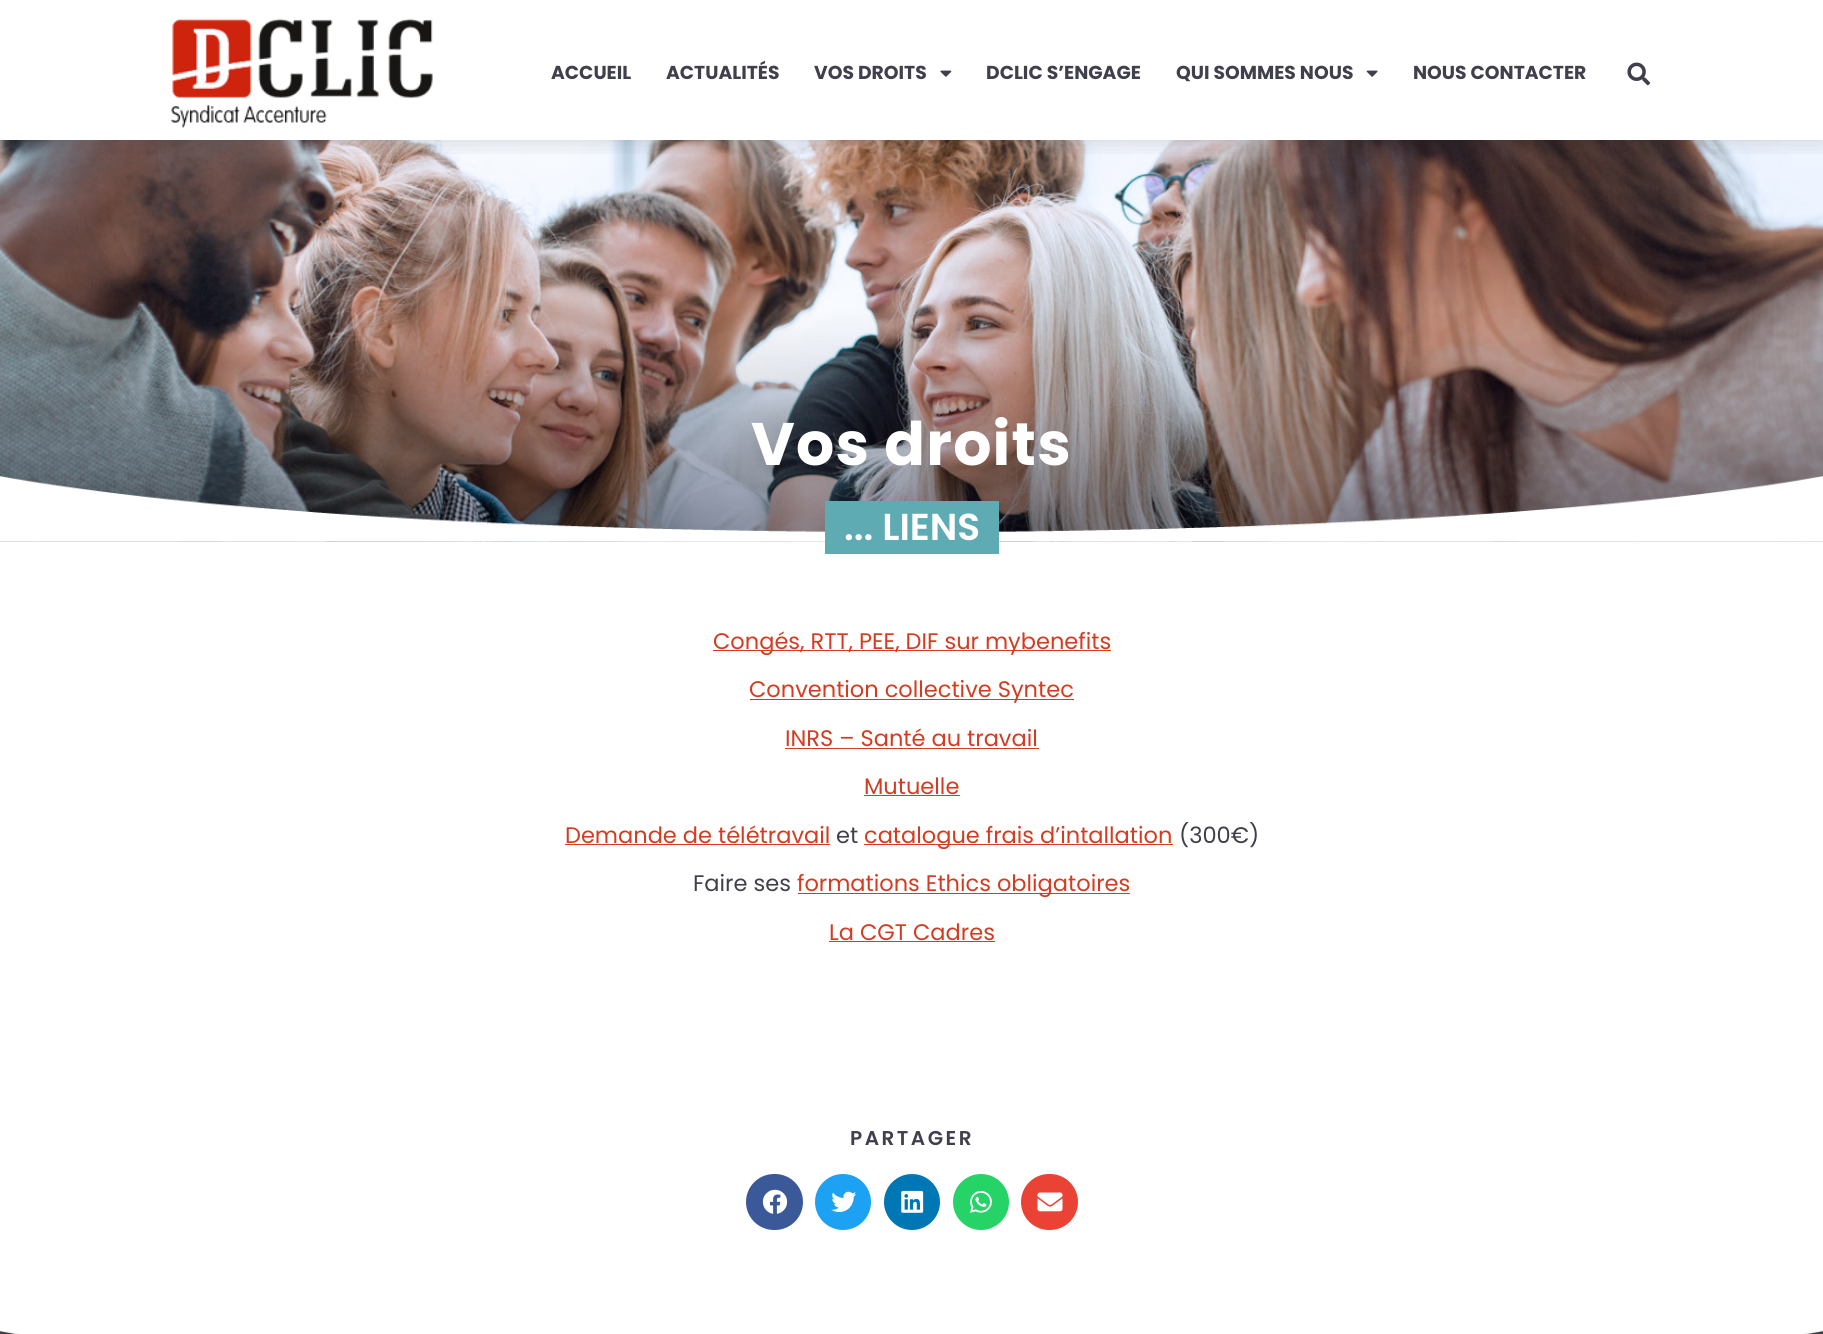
#include <cairo/cairo.h>
#include <math.h>
#include <stddef.h>


static void draw_spaced(cairo_t *cr, double x, double y, const char *s, double letter, double word) {
  cairo_move_to(cr, x, y);
  while (*s) {
    char ch[5] = {0};
    int n = 0;
    do ch[n++] = *s++; while ((*s & 0xC0) == 0x80);
    cairo_show_text(cr, ch);
    cairo_rel_move_to(cr, letter + word * (*ch == ' '), 0);
  }
}

static void rounded_rect(cairo_t *cr, double x, double y, double w, double h, double r) {
  cairo_new_sub_path(cr);
  cairo_arc(cr, x + w - r, y + h - r, r, 0, M_PI / 2);
  cairo_arc(cr, x + r, y + h - r, r, M_PI / 2, M_PI);
  cairo_arc(cr, x + r, y + r, r, M_PI, 1.5 * M_PI);
  cairo_arc(cr, x + w - r, y + r, r, 1.5 * M_PI, 2 * M_PI);
  cairo_close_path(cr);
}

static void draw_shadow(cairo_t *cr, double x, double y, double w, double h, double r, double blur, double alpha) {
  cairo_push_group_with_content(cr, CAIRO_CONTENT_ALPHA);
  cairo_set_operator(cr, CAIRO_OPERATOR_SOURCE);
  for (int i = 15; i >= -15 && fmin(w, h) + blur * i / 3 > 0; i -= 2) {
    double e = blur * i / 6;
    cairo_set_source_rgba(cr, 0, 0, 0, alpha * erfc((i - 1) / 8.5) / 2);
    rounded_rect(cr, x - e, y - e, w + 2 * e, h + 2 * e, fmax(0, fmin(r + e + blur * .6, fmin(w, h) / 2 + e)));
    cairo_fill(cr);
  }
  cairo_pattern_t *soft = cairo_pop_group(cr);
  cairo_mask(cr, soft);
  cairo_pattern_destroy(soft);
}

static void draw_image(cairo_t *cr, const char *path, double x, double y, double w, double h) {
  cairo_surface_t *image = cairo_image_surface_create_from_png(path);
  cairo_save(cr);
  cairo_set_source_surface(cr, image, x, y);
  cairo_rectangle(cr, x, y, w, h);
  cairo_fill(cr);
  cairo_restore(cr);
  cairo_surface_destroy(image);
}

static void draw(cairo_t *cr) {
  cairo_set_source_rgb(cr, 1, 1, 1);
  cairo_paint(cr);
  draw_image(cr, "images/5.png", 0, 140, 1823, 402);
  cairo_save(cr);
  cairo_rectangle(cr, 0, 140, 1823, 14);
  cairo_clip(cr);
  cairo_set_source_rgb(cr, 0, 0, 0);
  draw_shadow(cr, 0, 0, 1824, 140, 0, 12.5, 0.15);
  cairo_restore(cr);
  draw_image(cr, "images/1.png", 171, 18, 262, 110);
  draw_image(cr, "images/2.png", 940, 70, 12, 7);
  draw_image(cr, "images/3.png", 1366, 70, 12, 7);
  draw_image(cr, "images/4.png", 1627, 62, 24, 24);
  draw_image(cr, "images/6.png", 0, 476, 1823, 66);
  cairo_set_source_rgb(cr, 95 / 255.0, 171 / 255.0, 180 / 255.0);
  cairo_rectangle(cr, 825, 501, 174, 53);
  cairo_fill(cr);
  cairo_set_source_rgb(cr, 211 / 255.0, 60 / 255.0, 32 / 255.0);
  cairo_rectangle(cr, 713, 650, 398, 1);
  cairo_fill(cr);
  cairo_rectangle(cr, 750, 699, 324, 1);
  cairo_fill(cr);
  cairo_rectangle(cr, 785, 748, 254, 1);
  cairo_fill(cr);
  cairo_rectangle(cr, 864, 795, 96, 1);
  cairo_fill(cr);
  cairo_rectangle(cr, 565, 844, 265, 1);
  cairo_fill(cr);
  cairo_rectangle(cr, 864, 844, 309, 1);
  cairo_fill(cr);
  cairo_rectangle(cr, 798, 893, 332, 1);
  cairo_fill(cr);
  cairo_rectangle(cr, 829, 941, 166, 1);
  cairo_fill(cr);
  cairo_set_source_rgb(cr, 59 / 255.0, 89 / 255.0, 152 / 255.0);
  rounded_rect(cr, 746, 1174, 57, 56, 28);
  cairo_fill(cr);
  draw_image(cr, "images/7.png", 762, 1189, 26, 25);
  cairo_set_source_rgb(cr, 29 / 255.0, 161 / 255.0, 242 / 255.0);
  cairo_arc(cr, 843, 1202, 28, 0, 2 * M_PI);
  cairo_fill(cr);
  draw_image(cr, "images/8.png", 831, 1191, 26, 21);
  cairo_set_source_rgb(cr, 0, 119 / 255.0, 181 / 255.0);
  cairo_arc(cr, 912, 1202, 28, 0, 2 * M_PI);
  cairo_fill(cr);
  draw_image(cr, "images/9.png", 901, 1190, 23, 23);
  cairo_set_source_rgb(cr, 37 / 255.0, 211 / 255.0, 102 / 255.0);
  cairo_arc(cr, 981, 1202, 28, 0, 2 * M_PI);
  cairo_fill(cr);
  draw_image(cr, "images/10.png", 970, 1190, 22, 23);
  cairo_set_source_rgb(cr, 234 / 255.0, 67 / 255.0, 53 / 255.0);
  rounded_rect(cr, 1021, 1174, 57, 56, 28);
  cairo_fill(cr);
  draw_image(cr, "images/11.png", 1037, 1192, 26, 20);
  draw_image(cr, "images/12.png", 0, 1331, 1823, 3);
  cairo_select_font_face(cr, "Poppins", CAIRO_FONT_SLANT_NORMAL, CAIRO_FONT_WEIGHT_BOLD);
  cairo_set_font_size(cr, 18.75);
  cairo_set_source_rgb(cr, 64 / 255.0, 63 / 255.0, 76 / 255.0);
  cairo_move_to(cr, 551, 79);
  cairo_show_text(cr, "ACCUEIL");
  cairo_move_to(cr, 666, 79);
  cairo_show_text(cr, "ACTUALITÉS");
  cairo_move_to(cr, 814, 79);
  cairo_show_text(cr, "VOS DROITS");
  cairo_move_to(cr, 986, 79);
  cairo_show_text(cr, "DCLIC S’ENGAGE");
  cairo_move_to(cr, 1176, 79);
  cairo_show_text(cr, "QUI SOMMES NOUS");
  cairo_move_to(cr, 1413, 79);
  cairo_show_text(cr, "NOUS CONTACTER");
  cairo_set_font_size(cr, 60);
  cairo_set_source_rgb(cr, 1, 1, 1);
  draw_spaced(cr, 751, 465, "Vos droits", 1.25, 0);
  cairo_select_font_face(cr, "Poppins SemiBold", CAIRO_FONT_SLANT_NORMAL, CAIRO_FONT_WEIGHT_NORMAL);
  cairo_set_font_size(cr, 37.5);
  cairo_move_to(cr, 844, 540);
  cairo_show_text(cr, "... LIENS");
  cairo_select_font_face(cr, "Poppins", CAIRO_FONT_SLANT_NORMAL, CAIRO_FONT_WEIGHT_NORMAL);
  cairo_set_font_size(cr, 22.5);
  cairo_set_source_rgb(cr, 211 / 255.0, 60 / 255.0, 32 / 255.0);
  cairo_move_to(cr, 713, 649);
  cairo_show_text(cr, "Congés, RTT, PEE, DIF sur mybenefits");
  cairo_move_to(cr, 749, 697);
  cairo_show_text(cr, "Convention collective Syntec");
  cairo_move_to(cr, 785, 746);
  cairo_show_text(cr, "INRS – Santé au travail");
  cairo_move_to(cr, 864, 794);
  cairo_show_text(cr, "Mutuelle");
  cairo_move_to(cr, 565, 843);
  cairo_show_text(cr, "Demande de télétravail");
  cairo_set_source_rgb(cr, 64 / 255.0, 63 / 255.0, 76 / 255.0);
  cairo_move_to(cr, 836, 843);
  cairo_show_text(cr, "et");
  cairo_set_source_rgb(cr, 211 / 255.0, 60 / 255.0, 32 / 255.0);
  cairo_move_to(cr, 864, 843);
  cairo_show_text(cr, "catalogue frais d’intallation");
  cairo_set_source_rgb(cr, 64 / 255.0, 63 / 255.0, 76 / 255.0);
  cairo_move_to(cr, 1179, 843);
  cairo_show_text(cr, "(300€)");
  cairo_move_to(cr, 693, 891);
  cairo_show_text(cr, "Faire ses");
  cairo_set_source_rgb(cr, 211 / 255.0, 60 / 255.0, 32 / 255.0);
  cairo_move_to(cr, 797, 891);
  cairo_show_text(cr, "formations Ethics obligatoires");
  cairo_move_to(cr, 829, 940);
  cairo_show_text(cr, "La CGT Cadres");
  cairo_select_font_face(cr, "Poppins SemiBold", CAIRO_FONT_SLANT_NORMAL, CAIRO_FONT_WEIGHT_NORMAL);
  cairo_set_font_size(cr, 20);
  cairo_set_source_rgb(cr, 64 / 255.0, 63 / 255.0, 76 / 255.0);
  draw_spaced(cr, 850, 1145, "PARTAGER", 2.5, 0);
}

int main(void) {
  cairo_surface_t *surface = cairo_image_surface_create(CAIRO_FORMAT_RGB24, 1823, 1334);
  cairo_t *cr = cairo_create(surface);
  cairo_font_options_t *options = cairo_font_options_create();
  cairo_font_options_set_hint_metrics(options, CAIRO_HINT_METRICS_OFF);
  cairo_font_options_set_hint_style(options, CAIRO_HINT_STYLE_NONE);
  cairo_set_font_options(cr, options);
  cairo_set_miter_limit(cr, 4);
  draw(cr);
  cairo_surface_write_to_png(surface, "out.png");
  cairo_font_options_destroy(options);
  cairo_destroy(cr);
  cairo_surface_destroy(surface);
  return 0;
}
